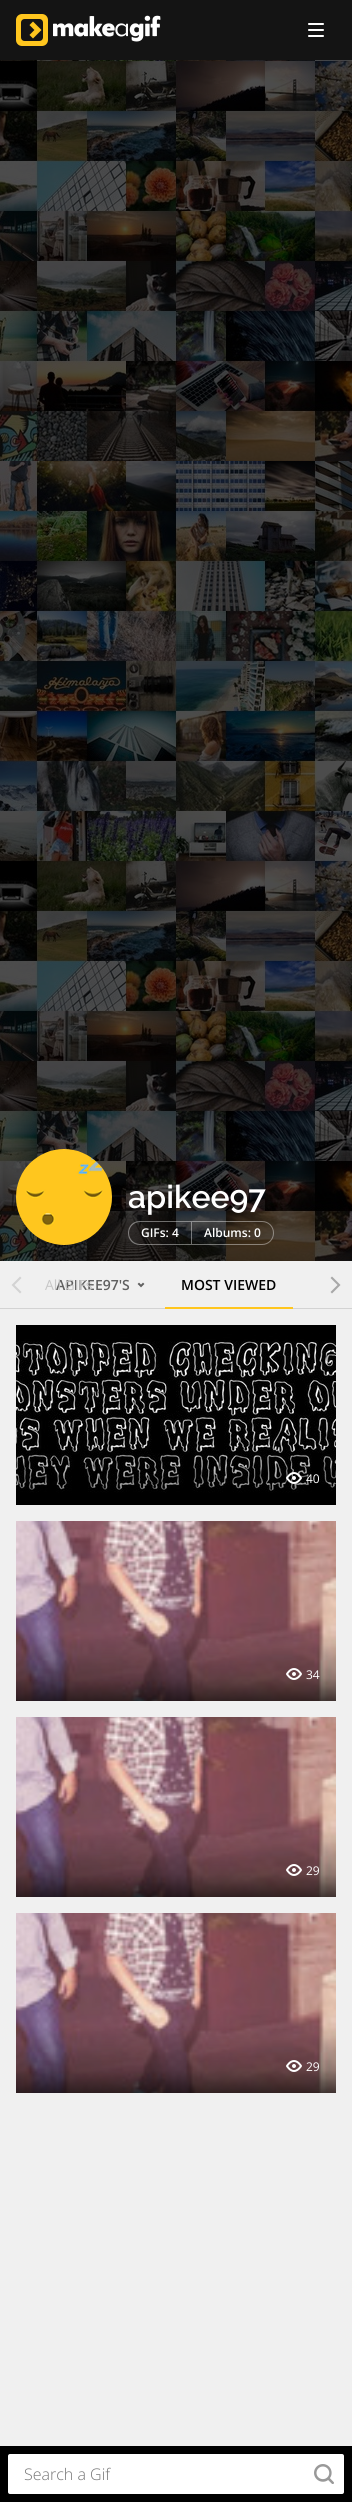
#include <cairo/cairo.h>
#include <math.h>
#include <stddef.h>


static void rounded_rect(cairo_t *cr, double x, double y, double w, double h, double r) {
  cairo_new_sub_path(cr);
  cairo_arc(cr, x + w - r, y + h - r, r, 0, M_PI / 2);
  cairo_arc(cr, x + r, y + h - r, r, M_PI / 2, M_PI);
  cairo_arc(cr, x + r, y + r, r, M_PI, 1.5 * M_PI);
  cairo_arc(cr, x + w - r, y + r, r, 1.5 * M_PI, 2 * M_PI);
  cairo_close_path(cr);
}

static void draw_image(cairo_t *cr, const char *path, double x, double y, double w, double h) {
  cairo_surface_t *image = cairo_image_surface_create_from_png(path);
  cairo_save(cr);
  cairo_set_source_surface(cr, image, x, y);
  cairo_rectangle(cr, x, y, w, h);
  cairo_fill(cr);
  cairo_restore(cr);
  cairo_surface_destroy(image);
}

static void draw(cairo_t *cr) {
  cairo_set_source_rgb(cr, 240 / 255.0, 240 / 255.0, 240 / 255.0);
  cairo_paint(cr);
  cairo_set_source_rgb(cr, 20 / 255.0, 20 / 255.0, 20 / 255.0);
  cairo_rectangle(cr, 0, 0, 352, 60);
  cairo_fill(cr);
  draw_image(cr, "images/1.png", 16, 14, 145, 32);
  draw_image(cr, "images/2.png", 308, 23, 16, 14);
  draw_image(cr, "images/3.png", 0, 60, 352, 1201);
  draw_image(cr, "images/4.png", 16, 1149, 96, 96);
  cairo_set_source_rgba(cr, 1, 1, 1, 0.4);
  cairo_set_fill_rule(cr, CAIRO_FILL_RULE_EVEN_ODD);
  cairo_new_path(cr);
  cairo_move_to(cr, 140, 1221);
  cairo_line_to(cr, 191, 1221);
  cairo_line_to(cr, 191, 1245);
  cairo_line_to(cr, 140, 1245);
  cairo_curve_to(cr, 124, 1245, 124, 1221, 140, 1221);
  cairo_close_path(cr);
  cairo_move_to(cr, 140, 1222);
  cairo_line_to(cr, 191, 1222);
  cairo_line_to(cr, 191, 1244);
  cairo_line_to(cr, 140, 1244);
  cairo_curve_to(cr, 134, 1244, 129, 1239, 129, 1233);
  cairo_curve_to(cr, 129, 1227, 134, 1222, 140, 1222);
  cairo_close_path(cr);
  cairo_fill(cr);
  cairo_new_path(cr);
  cairo_move_to(cr, 191.5, 1221.5);
  cairo_line_to(cr, 262, 1221.5);
  cairo_curve_to(cr, 268.5, 1221.5, 273.5, 1226.5, 273.5, 1233);
  cairo_curve_to(cr, 273.5, 1239.5, 268.5, 1244.5, 262, 1244.5);
  cairo_line_to(cr, 191.5, 1244.5);
  cairo_close_path(cr);
  cairo_set_line_width(cr, 1);
  cairo_stroke(cr);
  cairo_set_source_rgb(cr, 211 / 255.0, 211 / 255.0, 211 / 255.0);
  cairo_rectangle(cr, 0, 1308, 352, 1);
  cairo_fill(cr);
  cairo_set_fill_rule(cr, CAIRO_FILL_RULE_WINDING);
  cairo_new_path(cr);
  cairo_move_to(cr, 20, 1293.5);
  cairo_line_to(cr, 11.5, 1285);
  cairo_line_to(cr, 14.5, 1285);
  cairo_line_to(cr, 21.5, 1292);
  cairo_close_path(cr);
  cairo_move_to(cr, 11.5, 1285);
  cairo_line_to(cr, 20, 1276.5);
  cairo_line_to(cr, 21.5, 1278);
  cairo_line_to(cr, 14.5, 1285);
  cairo_close_path(cr);
  cairo_fill(cr);
  draw_image(cr, "images/5.png", 137, 1282, 8, 6);
  cairo_set_source_rgb(cr, 1, 198 / 255.0, 30 / 255.0);
  cairo_rectangle(cr, 165, 1307, 128, 2);
  cairo_fill(cr);
  cairo_set_source_rgb(cr, 168 / 255.0, 168 / 255.0, 168 / 255.0);
  cairo_new_path(cr);
  cairo_move_to(cr, 332, 1276.5);
  cairo_line_to(cr, 340.5, 1285);
  cairo_line_to(cr, 337.5, 1285);
  cairo_line_to(cr, 330.5, 1278);
  cairo_close_path(cr);
  cairo_move_to(cr, 340.5, 1285);
  cairo_line_to(cr, 332, 1293.5);
  cairo_line_to(cr, 330.5, 1292);
  cairo_line_to(cr, 337.5, 1285);
  cairo_close_path(cr);
  cairo_fill(cr);
  draw_image(cr, "images/6.png", 16, 1325, 320, 180);
  draw_image(cr, "images/7.png", 286, 1472, 16, 12);
  draw_image(cr, "images/8.png", 16, 1521, 320, 180);
  draw_image(cr, "images/9.png", 286, 1668, 16, 12);
  draw_image(cr, "images/8.png", 16, 1717, 320, 180);
  draw_image(cr, "images/9.png", 286, 1864, 16, 12);
  draw_image(cr, "images/8.png", 16, 1913, 320, 180);
  draw_image(cr, "images/9.png", 286, 2060, 16, 12);
  cairo_set_source_rgb(cr, 0, 0, 0);
  cairo_rectangle(cr, 0, 2446, 352, 56);
  cairo_fill(cr);
  cairo_set_source_rgb(cr, 1, 1, 1);
  rounded_rect(cr, 8, 2454, 336, 40, 2);
  cairo_fill(cr);
  draw_image(cr, "images/10.png", 314, 2464, 20, 20);
  cairo_select_font_face(cr, "Raleway SemiBold", CAIRO_FONT_SLANT_NORMAL, CAIRO_FONT_WEIGHT_NORMAL);
  cairo_set_font_size(cr, 32);
  cairo_move_to(cr, 128, 1208);
  cairo_show_text(cr, "apikee97");
  cairo_select_font_face(cr, "Open Sans SemiBold", CAIRO_FONT_SLANT_NORMAL, CAIRO_FONT_WEIGHT_NORMAL);
  cairo_set_font_size(cr, 12);
  cairo_move_to(cr, 141, 1237);
  cairo_show_text(cr, "GIFs: 4");
  cairo_move_to(cr, 204, 1237);
  cairo_show_text(cr, "Albums: 0");
  cairo_set_font_size(cr, 14);
  cairo_set_source_rgb(cr, 96 / 255.0, 96 / 255.0, 96 / 255.0);
  cairo_move_to(cr, 56, 1290);
  cairo_show_text(cr, "APIKEE97'S");
  cairo_select_font_face(cr, "Open Sans", CAIRO_FONT_SLANT_NORMAL, CAIRO_FONT_WEIGHT_NORMAL);
  cairo_set_source_rgb(cr, 199 / 255.0, 199 / 255.0, 199 / 255.0);
  cairo_move_to(cr, 45, 1290);
  cairo_show_text(cr, "All GIFs");
  cairo_select_font_face(cr, "Open Sans SemiBold", CAIRO_FONT_SLANT_NORMAL, CAIRO_FONT_WEIGHT_NORMAL);
  cairo_set_source_rgb(cr, 0, 0, 0);
  cairo_move_to(cr, 181, 1290);
  cairo_show_text(cr, "MOST VIEWED");
  cairo_select_font_face(cr, "Open Sans", CAIRO_FONT_SLANT_NORMAL, CAIRO_FONT_WEIGHT_NORMAL);
  cairo_set_font_size(cr, 12);
  cairo_set_source_rgb(cr, 1, 1, 1);
  cairo_move_to(cr, 306, 1483);
  cairo_show_text(cr, "40");
  cairo_move_to(cr, 306, 1679);
  cairo_show_text(cr, "34");
  cairo_move_to(cr, 306, 1875);
  cairo_show_text(cr, "29");
  cairo_move_to(cr, 306, 2071);
  cairo_show_text(cr, "29");
  cairo_select_font_face(cr, "Open Sans Light", CAIRO_FONT_SLANT_NORMAL, CAIRO_FONT_WEIGHT_NORMAL);
  cairo_set_font_size(cr, 16);
  cairo_set_source_rgb(cr, 117 / 255.0, 117 / 255.0, 117 / 255.0);
  cairo_move_to(cr, 24, 2480);
  cairo_show_text(cr, "Search a Gif");
}

int main(void) {
  cairo_surface_t *surface = cairo_image_surface_create(CAIRO_FORMAT_RGB24, 352, 2502);
  cairo_t *cr = cairo_create(surface);
  cairo_font_options_t *options = cairo_font_options_create();
  cairo_font_options_set_hint_metrics(options, CAIRO_HINT_METRICS_OFF);
  cairo_font_options_set_hint_style(options, CAIRO_HINT_STYLE_NONE);
  cairo_set_font_options(cr, options);
  cairo_set_miter_limit(cr, 4);
  draw(cr);
  cairo_surface_write_to_png(surface, "out.png");
  cairo_font_options_destroy(options);
  cairo_destroy(cr);
  cairo_surface_destroy(surface);
  return 0;
}
